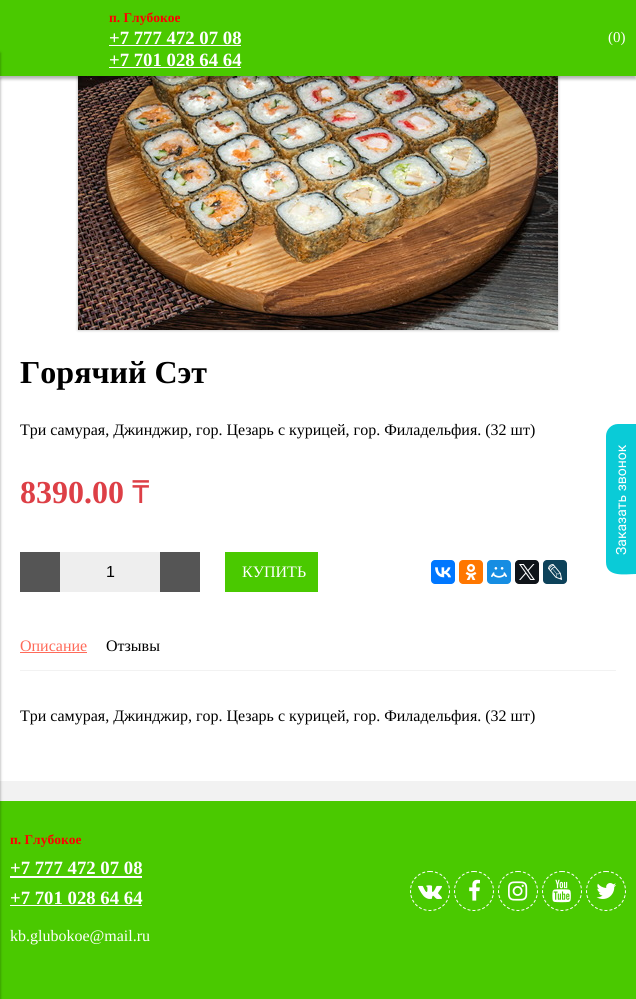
#include <cairo/cairo.h>
#include <math.h>
#include <stddef.h>


static void rounded_rect(cairo_t *cr, double x, double y, double w, double h, double r) {
  cairo_new_sub_path(cr);
  cairo_arc(cr, x + w - r, y + h - r, r, 0, M_PI / 2);
  cairo_arc(cr, x + r, y + h - r, r, M_PI / 2, M_PI);
  cairo_arc(cr, x + r, y + r, r, M_PI, 1.5 * M_PI);
  cairo_arc(cr, x + w - r, y + r, r, 1.5 * M_PI, 2 * M_PI);
  cairo_close_path(cr);
}

static void draw_shadow(cairo_t *cr, double x, double y, double w, double h, double r, double blur, double alpha) {
  cairo_push_group_with_content(cr, CAIRO_CONTENT_ALPHA);
  cairo_set_operator(cr, CAIRO_OPERATOR_SOURCE);
  for (int i = 15; i >= -15 && fmin(w, h) + blur * i / 3 > 0; i -= 2) {
    double e = blur * i / 6;
    cairo_set_source_rgba(cr, 0, 0, 0, alpha * erfc((i - 1) / 8.5) / 2);
    rounded_rect(cr, x - e, y - e, w + 2 * e, h + 2 * e, fmax(0, fmin(r + e + blur * .6, fmin(w, h) / 2 + e)));
    cairo_fill(cr);
  }
  cairo_pattern_t *soft = cairo_pop_group(cr);
  cairo_mask(cr, soft);
  cairo_pattern_destroy(soft);
}

static void draw_image(cairo_t *cr, const char *path, double x, double y, double w, double h) {
  cairo_surface_t *image = cairo_image_surface_create_from_png(path);
  cairo_save(cr);
  cairo_set_source_surface(cr, image, x, y);
  cairo_rectangle(cr, x, y, w, h);
  cairo_fill(cr);
  cairo_restore(cr);
  cairo_surface_destroy(image);
}

static void draw(cairo_t *cr) {
  cairo_set_source_rgb(cr, 242 / 255.0, 242 / 255.0, 242 / 255.0);
  cairo_paint(cr);
  cairo_set_source_rgb(cr, 1, 1, 1);
  cairo_rectangle(cr, 0, 76, 636, 705);
  cairo_fill(cr);
  cairo_set_source_rgb(cr, 0, 0, 0);
  draw_shadow(cr, 78, -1, 480, 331, 0, 1.5, 0.3);
  draw_image(cr, "images/1.png", 78, 76, 480, 254);
  draw_shadow(cr, 0, 3, 636, 76, 0, 1.5, 0.3);
  cairo_set_source_rgb(cr, 74 / 255.0, 201 / 255.0, 0);
  cairo_rectangle(cr, 0, 0, 636, 76);
  cairo_fill(cr);
  cairo_set_source_rgb(cr, 1, 1, 1);
  cairo_rectangle(cr, 109, 45, 132, 1);
  cairo_fill(cr);
  cairo_rectangle(cr, 109, 67, 132, 1);
  cairo_fill(cr);
  cairo_set_source_rgb(cr, 74 / 255.0, 201 / 255.0, 0);
  cairo_rectangle(cr, 0, 801, 636, 198);
  cairo_fill(cr);
  cairo_set_source_rgb(cr, 0, 0, 0);
  draw_shadow(cr, -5, 53, 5, 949, 0, 1.5, 0.4);
  cairo_set_source_rgb(cr, 85 / 255.0, 85 / 255.0, 85 / 255.0);
  cairo_rectangle(cr, 20, 552, 40, 40);
  cairo_fill(cr);
  cairo_set_source_rgb(cr, 238 / 255.0, 238 / 255.0, 238 / 255.0);
  cairo_rectangle(cr, 60, 552, 100, 40);
  cairo_fill(cr);
  cairo_set_source_rgb(cr, 85 / 255.0, 85 / 255.0, 85 / 255.0);
  cairo_rectangle(cr, 160, 552, 40, 40);
  cairo_fill(cr);
  cairo_set_source_rgb(cr, 74 / 255.0, 201 / 255.0, 0);
  cairo_rectangle(cr, 225, 552, 93, 40);
  cairo_fill(cr);
  cairo_set_source_rgb(cr, 0, 119 / 255.0, 1);
  rounded_rect(cr, 431, 560, 24, 24, 4);
  cairo_fill(cr);
  draw_image(cr, "images/2.png", 435, 567, 16, 11);
  cairo_set_source_rgb(cr, 1, 119 / 255.0, 0);
  rounded_rect(cr, 459, 560, 24, 24, 4);
  cairo_fill(cr);
  draw_image(cr, "images/3.png", 465, 564, 12, 16);
  cairo_set_source_rgb(cr, 22 / 255.0, 141 / 255.0, 226 / 255.0);
  rounded_rect(cr, 487, 560, 24, 24, 4);
  cairo_fill(cr);
  draw_image(cr, "images/4.png", 491, 567, 16, 11);
  cairo_set_source_rgb(cr, 15 / 255.0, 20 / 255.0, 25 / 255.0);
  rounded_rect(cr, 515, 560, 24, 24, 4);
  cairo_fill(cr);
  draw_image(cr, "images/5.png", 519, 564, 16, 16);
  cairo_set_source_rgb(cr, 13 / 255.0, 66 / 255.0, 90 / 255.0);
  rounded_rect(cr, 543, 560, 24, 24, 4);
  cairo_fill(cr);
  draw_image(cr, "images/6.png", 548, 564, 15, 16);
  cairo_set_source_rgb(cr, 242 / 255.0, 242 / 255.0, 242 / 255.0);
  cairo_rectangle(cr, 20, 670, 596, 1);
  cairo_fill(cr);
  cairo_set_source_rgb(cr, 1, 106 / 255.0, 89 / 255.0);
  cairo_rectangle(cr, 20, 652, 67, 1);
  cairo_fill(cr);
  cairo_set_source_rgb(cr, 1, 1, 1);
  cairo_rectangle(cr, 10, 876, 132, 2);
  cairo_fill(cr);
  cairo_rectangle(cr, 10, 905, 132, 1);
  cairo_fill(cr);
  cairo_new_path(cr);
  cairo_move_to(cr, 430, 871.5);
  cairo_curve_to(cr, 441, 871.5, 449.5, 880, 449.5, 891);
  cairo_curve_to(cr, 449.5, 902, 441, 910.5, 430, 910.5);
  cairo_curve_to(cr, 419, 910.5, 410.5, 902, 410.5, 891);
  cairo_curve_to(cr, 410.5, 880, 419, 871.5, 430, 871.5);
  cairo_close_path(cr);
  cairo_set_line_width(cr, 1);
  cairo_set_dash(cr, (double[]){3, 2}, 2, 0);
  cairo_stroke(cr);
  draw_image(cr, "images/7.png", 418, 885, 24, 14);
  cairo_new_path(cr);
  cairo_move_to(cr, 474, 871.5);
  cairo_curve_to(cr, 485, 871.5, 493.5, 880, 493.5, 891);
  cairo_curve_to(cr, 493.5, 902, 485, 910.5, 474, 910.5);
  cairo_curve_to(cr, 463, 910.5, 454.5, 902, 454.5, 891);
  cairo_curve_to(cr, 454.5, 880, 463, 871.5, 474, 871.5);
  cairo_close_path(cr);
  cairo_stroke(cr);
  draw_image(cr, "images/8.png", 469, 879, 11, 22);
  cairo_new_path(cr);
  cairo_move_to(cr, 518, 871.5);
  cairo_curve_to(cr, 529, 871.5, 537.5, 880, 537.5, 891);
  cairo_curve_to(cr, 537.5, 902, 529, 910.5, 518, 910.5);
  cairo_curve_to(cr, 507, 910.5, 498.5, 902, 498.5, 891);
  cairo_curve_to(cr, 498.5, 880, 507, 871.5, 518, 871.5);
  cairo_close_path(cr);
  cairo_stroke(cr);
  draw_image(cr, "images/9.png", 508, 881, 20, 20);
  cairo_new_path(cr);
  cairo_move_to(cr, 562, 871.5);
  cairo_curve_to(cr, 573, 871.5, 581.5, 880, 581.5, 891);
  cairo_curve_to(cr, 581.5, 902, 573, 910.5, 562, 910.5);
  cairo_curve_to(cr, 551, 910.5, 542.5, 902, 542.5, 891);
  cairo_curve_to(cr, 542.5, 880, 551, 871.5, 562, 871.5);
  cairo_close_path(cr);
  cairo_stroke(cr);
  draw_image(cr, "images/10.png", 552, 879, 19, 24);
  cairo_new_path(cr);
  cairo_move_to(cr, 606, 871.5);
  cairo_curve_to(cr, 617, 871.5, 625.5, 880, 625.5, 891);
  cairo_curve_to(cr, 625.5, 902, 617, 910.5, 606, 910.5);
  cairo_curve_to(cr, 595, 910.5, 586.5, 902, 586.5, 891);
  cairo_curve_to(cr, 586.5, 880, 595, 871.5, 606, 871.5);
  cairo_close_path(cr);
  cairo_stroke(cr);
  draw_image(cr, "images/11.png", 596, 883, 20, 16);
  cairo_set_source_rgb(cr, 10 / 255.0, 203 / 255.0, 215 / 255.0);
  cairo_new_path(cr);
  cairo_move_to(cr, 606, 562);
  cairo_line_to(cr, 606, 436);
  cairo_curve_to(cr, 606, 430, 611, 424, 618, 424);
  cairo_line_to(cr, 636, 424);
  cairo_line_to(cr, 636, 574);
  cairo_curve_to(cr, 626, 574, 606, 578, 606, 562);
  cairo_close_path(cr);
  cairo_fill(cr);
  cairo_select_font_face(cr, "Liberation Serif", CAIRO_FONT_SLANT_NORMAL, CAIRO_FONT_WEIGHT_BOLD);
  cairo_set_font_size(cr, 13.5);
  cairo_set_source_rgb(cr, 1, 0, 0);
  cairo_move_to(cr, 109, 22);
  cairo_show_text(cr, "п. Глубокое");
  cairo_set_font_size(cr, 18.75);
  cairo_set_source_rgb(cr, 1, 1, 1);
  cairo_move_to(cr, 109, 44);
  cairo_show_text(cr, "+7 777 472 07 08");
  cairo_move_to(cr, 109, 66);
  cairo_show_text(cr, "+7 701 028 64 64");
  cairo_select_font_face(cr, "Liberation Serif", CAIRO_FONT_SLANT_NORMAL, CAIRO_FONT_WEIGHT_NORMAL);
  cairo_set_font_size(cr, 15);
  cairo_move_to(cr, 608, 42);
  cairo_show_text(cr, "(0)");
  cairo_select_font_face(cr, "Liberation Serif", CAIRO_FONT_SLANT_NORMAL, CAIRO_FONT_WEIGHT_BOLD);
  cairo_set_font_size(cr, 32);
  cairo_set_source_rgb(cr, 0, 0, 0);
  cairo_move_to(cr, 20, 383);
  cairo_show_text(cr, "Горячий Сэт");
  cairo_select_font_face(cr, "Liberation Serif", CAIRO_FONT_SLANT_NORMAL, CAIRO_FONT_WEIGHT_NORMAL);
  cairo_set_font_size(cr, 16);
  cairo_move_to(cr, 20, 435);
  cairo_show_text(cr, "Три самурая, Джинджир, гор. Цезарь с курицей, гор. Филадельфия. (32 шт)");
  cairo_select_font_face(cr, "Liberation Serif", CAIRO_FONT_SLANT_NORMAL, CAIRO_FONT_WEIGHT_BOLD);
  cairo_set_font_size(cr, 32);
  cairo_set_source_rgb(cr, 221 / 255.0, 63 / 255.0, 70 / 255.0);
  cairo_move_to(cr, 20, 503);
  cairo_show_text(cr, "8390.00");
  cairo_select_font_face(cr, "Noto Sans", CAIRO_FONT_SLANT_NORMAL, CAIRO_FONT_WEIGHT_NORMAL);
  cairo_move_to(cr, 132, 503);
  cairo_show_text(cr, "₸");
  cairo_select_font_face(cr, "Liberation Sans", CAIRO_FONT_SLANT_NORMAL, CAIRO_FONT_WEIGHT_NORMAL);
  cairo_set_font_size(cr, 16);
  cairo_set_source_rgb(cr, 0, 0, 0);
  cairo_move_to(cr, 106, 577);
  cairo_show_text(cr, "1");
  cairo_select_font_face(cr, "Liberation Serif", CAIRO_FONT_SLANT_NORMAL, CAIRO_FONT_WEIGHT_NORMAL);
  cairo_set_source_rgb(cr, 1, 1, 1);
  cairo_move_to(cr, 242, 577);
  cairo_show_text(cr, "КУПИТЬ");
  cairo_set_source_rgb(cr, 1, 106 / 255.0, 89 / 255.0);
  cairo_move_to(cr, 20, 651);
  cairo_show_text(cr, "Описание");
  cairo_set_source_rgb(cr, 0, 0, 0);
  cairo_move_to(cr, 106, 651);
  cairo_show_text(cr, "Отзывы");
  cairo_move_to(cr, 20, 721);
  cairo_show_text(cr, "Три самурая, Джинджир, гор. Цезарь с курицей, гор. Филадельфия. (32 шт)");
  cairo_select_font_face(cr, "Liberation Serif", CAIRO_FONT_SLANT_NORMAL, CAIRO_FONT_WEIGHT_BOLD);
  cairo_set_font_size(cr, 13.5);
  cairo_set_source_rgb(cr, 1, 0, 0);
  cairo_move_to(cr, 10, 844);
  cairo_show_text(cr, "п. Глубокое");
  cairo_set_font_size(cr, 18.75);
  cairo_set_source_rgb(cr, 1, 1, 1);
  cairo_move_to(cr, 10, 874);
  cairo_show_text(cr, "+7 777 472 07 08");
  cairo_move_to(cr, 10, 904);
  cairo_show_text(cr, "+7 701 028 64 64");
  cairo_select_font_face(cr, "Liberation Serif", CAIRO_FONT_SLANT_NORMAL, CAIRO_FONT_WEIGHT_NORMAL);
  cairo_set_font_size(cr, 16);
  cairo_move_to(cr, 10, 941);
  cairo_show_text(cr, "kb.glubokoe@mail.ru");
  cairo_select_font_face(cr, "Roboto", CAIRO_FONT_SLANT_NORMAL, CAIRO_FONT_WEIGHT_NORMAL);
  cairo_set_font_size(cr, 14);
  cairo_save(cr);
  cairo_translate(cr, 626, 555);
  cairo_rotate(cr, -90 * M_PI / 180);
  cairo_move_to(cr, 0, 0);
  cairo_show_text(cr, "Заказать звонок");
  cairo_restore(cr);
}

int main(void) {
  cairo_surface_t *surface = cairo_image_surface_create(CAIRO_FORMAT_RGB24, 636, 999);
  cairo_t *cr = cairo_create(surface);
  cairo_font_options_t *options = cairo_font_options_create();
  cairo_font_options_set_hint_metrics(options, CAIRO_HINT_METRICS_OFF);
  cairo_font_options_set_hint_style(options, CAIRO_HINT_STYLE_NONE);
  cairo_set_font_options(cr, options);
  cairo_set_miter_limit(cr, 4);
  draw(cr);
  cairo_surface_write_to_png(surface, "out.png");
  cairo_font_options_destroy(options);
  cairo_destroy(cr);
  cairo_surface_destroy(surface);
  return 0;
}
